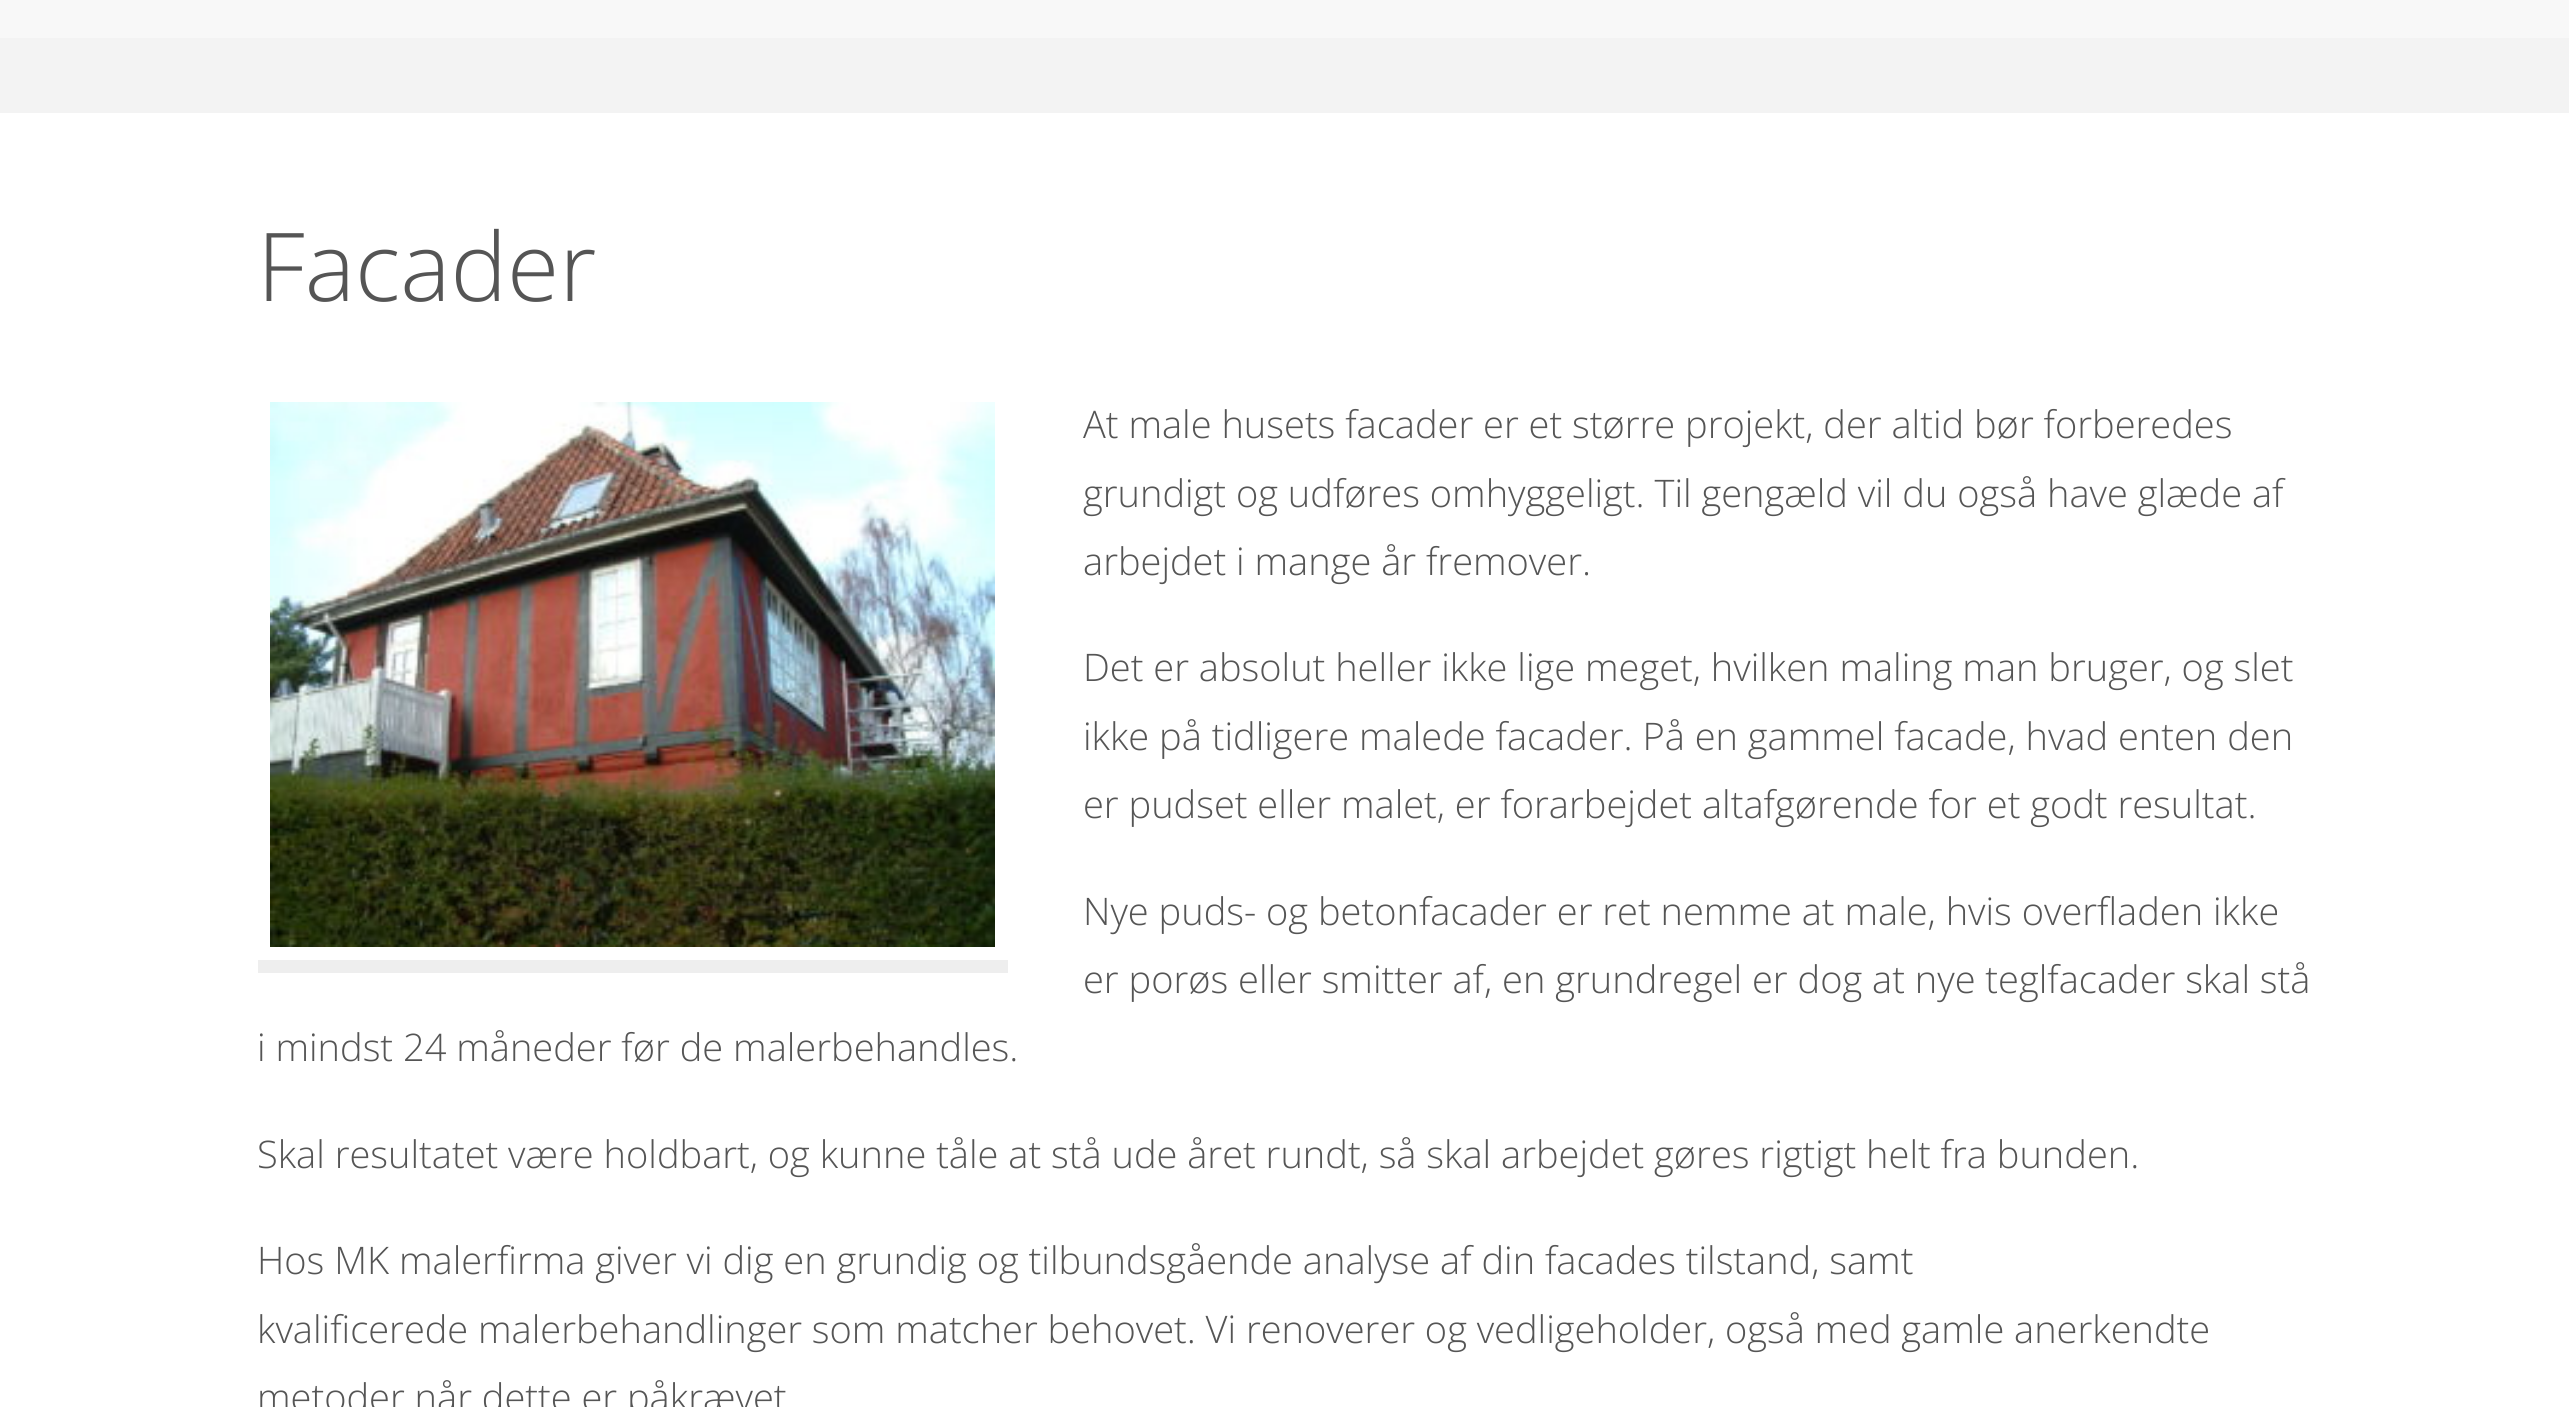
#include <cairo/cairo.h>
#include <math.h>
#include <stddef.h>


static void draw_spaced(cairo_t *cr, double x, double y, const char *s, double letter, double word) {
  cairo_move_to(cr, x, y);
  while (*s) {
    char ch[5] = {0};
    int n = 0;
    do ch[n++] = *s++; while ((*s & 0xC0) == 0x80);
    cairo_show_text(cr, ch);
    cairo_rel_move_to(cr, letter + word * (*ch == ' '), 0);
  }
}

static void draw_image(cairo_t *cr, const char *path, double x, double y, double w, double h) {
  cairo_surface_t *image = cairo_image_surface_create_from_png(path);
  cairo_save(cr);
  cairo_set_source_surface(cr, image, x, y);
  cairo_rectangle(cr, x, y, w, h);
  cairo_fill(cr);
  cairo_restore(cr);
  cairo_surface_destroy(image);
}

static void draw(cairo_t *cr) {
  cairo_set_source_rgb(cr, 243 / 255.0, 243 / 255.0, 243 / 255.0);
  cairo_paint(cr);
  cairo_set_source_rgb(cr, 248 / 255.0, 248 / 255.0, 248 / 255.0);
  cairo_rectangle(cr, 0, 0, 2569, 38);
  cairo_fill(cr);
  cairo_set_source_rgb(cr, 1, 1, 1);
  cairo_rectangle(cr, 0, 113, 2569, 1294);
  cairo_fill(cr);
  cairo_set_source_rgb(cr, 238 / 255.0, 238 / 255.0, 238 / 255.0);
  cairo_rectangle(cr, 258, 960, 750, 13);
  cairo_fill(cr);
  draw_image(cr, "images/1.png", 270, 402, 725, 545);
  cairo_select_font_face(cr, "Open Sans Light", CAIRO_FONT_SLANT_NORMAL, CAIRO_FONT_WEIGHT_NORMAL);
  cairo_set_font_size(cr, 95);
  cairo_set_source_rgb(cr, 85 / 255.0, 85 / 255.0, 85 / 255.0);
  cairo_move_to(cr, 257, 301);
  cairo_show_text(cr, "Facader");
  cairo_set_font_size(cr, 38);
  cairo_move_to(cr, 1083, 438);
  cairo_show_text(cr, "At male husets facader er et større projekt, der altid bør forberedes");
  cairo_move_to(cr, 1083, 507);
  cairo_show_text(cr, "grundigt og udføres omhyggeligt. Til gengæld vil du også have glæde af");
  cairo_move_to(cr, 1083, 575);
  cairo_show_text(cr, "arbejdet i mange år fremover.");
  cairo_move_to(cr, 1083, 681);
  cairo_show_text(cr, "Det er absolut heller ikke lige meget, hvilken maling man bruger, og slet");
  cairo_move_to(cr, 1083, 750);
  cairo_show_text(cr, "ikke på tidligere malede facader. På en gammel facade, hvad enten den");
  cairo_move_to(cr, 1083, 818);
  cairo_show_text(cr, "er pudset eller malet, er forarbejdet altafgørende for et godt resultat.");
  cairo_move_to(cr, 1083, 925);
  cairo_show_text(cr, "Nye puds- og betonfacader er ret nemme at male, hvis overfladen ikke");
  cairo_move_to(cr, 1083, 993);
  cairo_show_text(cr, "er porøs eller smitter af, en grundregel er dog at nye teglfacader skal stå");
  cairo_move_to(cr, 257, 1061);
  cairo_show_text(cr, "i mindst 24 måneder før de malerbehandles.");
  cairo_move_to(cr, 257, 1168);
  cairo_show_text(cr, "Skal resultatet være holdbart, og kunne tåle at stå ude året rundt, så skal arbejdet gøres rigtigt helt fra bunden.");
  cairo_move_to(cr, 257, 1274);
  cairo_show_text(cr, "Hos MK malerfirma giver vi dig en grundig og tilbundsgående analyse af din facades tilstand, samt");
  draw_spaced(cr, 257, 1343, "kvalificerede malerbehandlinger som matcher behovet. Vi renoverer og vedligeholder, også med gamle anerkendte", 0, -0.1);
  cairo_move_to(cr, 257, 1411);
  cairo_show_text(cr, "metoder når dette er påkrævet");
}

int main(void) {
  cairo_surface_t *surface = cairo_image_surface_create(CAIRO_FORMAT_RGB24, 2569, 1407);
  cairo_t *cr = cairo_create(surface);
  cairo_font_options_t *options = cairo_font_options_create();
  cairo_font_options_set_hint_metrics(options, CAIRO_HINT_METRICS_OFF);
  cairo_font_options_set_hint_style(options, CAIRO_HINT_STYLE_NONE);
  cairo_set_font_options(cr, options);
  cairo_set_miter_limit(cr, 4);
  draw(cr);
  cairo_surface_write_to_png(surface, "out.png");
  cairo_font_options_destroy(options);
  cairo_destroy(cr);
  cairo_surface_destroy(surface);
  return 0;
}
